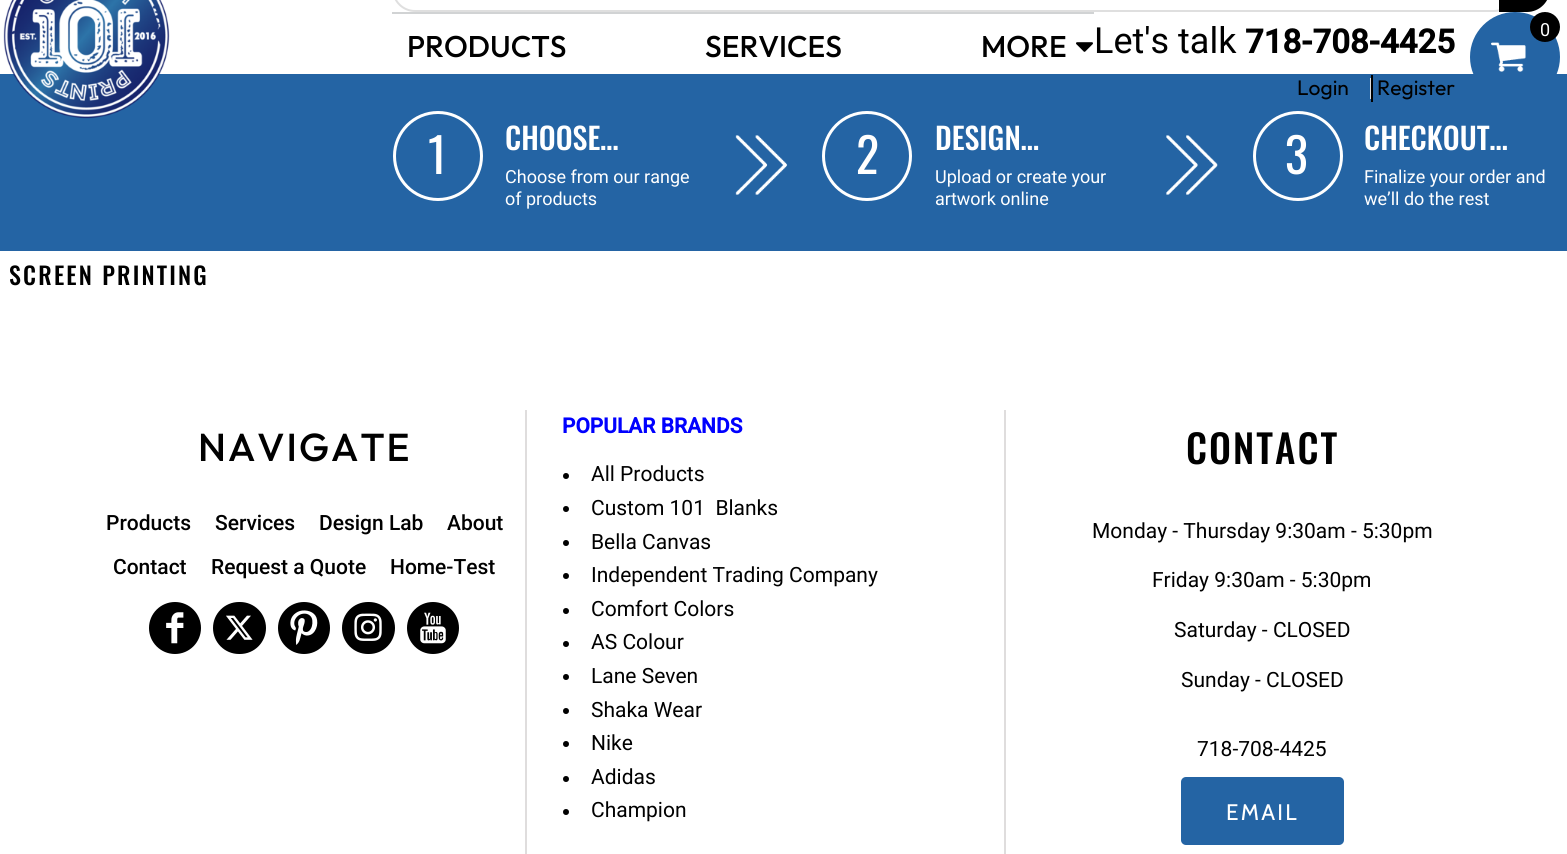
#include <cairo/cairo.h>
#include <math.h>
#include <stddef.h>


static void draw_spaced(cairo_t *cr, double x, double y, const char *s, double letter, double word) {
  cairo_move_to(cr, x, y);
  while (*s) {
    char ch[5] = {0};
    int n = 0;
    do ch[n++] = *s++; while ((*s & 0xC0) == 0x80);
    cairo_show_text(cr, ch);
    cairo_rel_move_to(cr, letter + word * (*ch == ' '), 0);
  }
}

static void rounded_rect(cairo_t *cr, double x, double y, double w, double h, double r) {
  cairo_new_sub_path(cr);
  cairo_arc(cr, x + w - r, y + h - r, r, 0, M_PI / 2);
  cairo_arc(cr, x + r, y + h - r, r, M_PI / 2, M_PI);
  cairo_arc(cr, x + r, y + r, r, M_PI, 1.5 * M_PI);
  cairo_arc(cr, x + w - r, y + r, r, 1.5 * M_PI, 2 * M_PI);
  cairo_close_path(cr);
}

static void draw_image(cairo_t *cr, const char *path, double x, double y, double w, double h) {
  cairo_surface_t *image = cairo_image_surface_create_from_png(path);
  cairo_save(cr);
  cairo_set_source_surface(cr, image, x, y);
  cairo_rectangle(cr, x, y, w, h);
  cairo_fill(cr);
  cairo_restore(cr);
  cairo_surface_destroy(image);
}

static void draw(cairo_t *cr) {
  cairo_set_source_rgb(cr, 1, 1, 1);
  cairo_paint(cr);
  cairo_set_source_rgb(cr, 209 / 255.0, 211 / 255.0, 212 / 255.0);
  cairo_rectangle(cr, 392, 12, 702, 2);
  cairo_fill(cr);
  draw_image(cr, "images/1.png", 1076, 42, 17, 10);
  rounded_rect(cr, 393, -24, 1123, 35, 22);
  cairo_set_source_rgb(cr, 223 / 255.0, 223 / 255.0, 223 / 255.0);
  cairo_stroke(cr);
  cairo_set_source_rgb(cr, 0, 0, 0);
  cairo_new_path(cr);
  cairo_move_to(cr, 1499, -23);
  cairo_line_to(cr, 1527, -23);
  cairo_curve_to(cr, 1539.5, -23, 1550, -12.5, 1550, 0);
  cairo_line_to(cr, 1550, -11);
  cairo_curve_to(cr, 1550, 1.5, 1539.5, 12, 1527, 12);
  cairo_line_to(cr, 1499, 12);
  cairo_close_path(cr);
  cairo_fill(cr);
  cairo_set_source_rgb(cr, 36 / 255.0, 100 / 255.0, 164 / 255.0);
  cairo_rectangle(cr, 0, 74, 1567, 177);
  cairo_fill(cr);
  draw_image(cr, "images/2.png", 3, 0, 167, 119);
  cairo_set_source_rgb(cr, 223 / 255.0, 223 / 255.0, 223 / 255.0);
  cairo_rectangle(cr, 1370, 78, 1, 21);
  cairo_fill(cr);
  cairo_set_source_rgb(cr, 0, 0, 0);
  cairo_rectangle(cr, 1371, 75, 2, 27);
  cairo_fill(cr);
  cairo_set_source_rgb(cr, 36 / 255.0, 100 / 255.0, 164 / 255.0);
  cairo_arc(cr, 1515, 57, 45, 0, 2 * M_PI);
  cairo_fill(cr);
  draw_image(cr, "images/3.png", 1491, 42, 35, 30);
  cairo_set_source_rgb(cr, 0, 0, 0);
  cairo_arc(cr, 1545, 27, 14, 0, 2 * M_PI);
  cairo_fill_preserve(cr);
  cairo_stroke(cr);
  cairo_arc(cr, 438, 156, 43.5, 0, 2 * M_PI);
  cairo_set_source_rgb(cr, 1, 1, 1);
  cairo_set_line_width(cr, 3);
  cairo_stroke(cr);
  draw_image(cr, "images/4.png", 735, 135, 53, 60);
  cairo_arc(cr, 867, 156, 43.5, 0, 2 * M_PI);
  cairo_stroke(cr);
  draw_image(cr, "images/5.png", 1166, 135, 52, 60);
  cairo_arc(cr, 1298, 156, 43.5, 0, 2 * M_PI);
  cairo_stroke(cr);
  cairo_set_source_rgb(cr, 223 / 255.0, 221 / 255.0, 221 / 255.0);
  cairo_rectangle(cr, 525, 410, 2, 444);
  cairo_fill(cr);
  cairo_set_source_rgb(cr, 0, 0, 0);
  cairo_arc(cr, 175, 628, 26, 0, 2 * M_PI);
  cairo_fill(cr);
  draw_image(cr, "images/6.png", 166, 612, 18, 32);
  rounded_rect(cr, 213, 602, 53, 52, 26);
  cairo_fill(cr);
  draw_image(cr, "images/7.png", 226, 615, 27, 25);
  cairo_arc(cr, 304, 628, 26, 0, 2 * M_PI);
  cairo_fill(cr);
  draw_image(cr, "images/8.png", 290, 610, 28, 35);
  rounded_rect(cr, 342, 602, 53, 52, 26);
  cairo_fill(cr);
  draw_image(cr, "images/9.png", 354, 613, 28, 28);
  cairo_arc(cr, 433, 628, 26, 0, 2 * M_PI);
  cairo_fill(cr);
  cairo_set_source_rgb(cr, 223 / 255.0, 221 / 255.0, 221 / 255.0);
  cairo_rectangle(cr, 1004, 410, 2, 444);
  cairo_fill(cr);
  cairo_set_source_rgb(cr, 0, 0, 0);
  cairo_arc(cr, 566, 476, 3, 0, 2 * M_PI);
  cairo_fill(cr);
  cairo_arc(cr, 566, 509, 3, 0, 2 * M_PI);
  cairo_fill(cr);
  cairo_arc(cr, 566, 543, 3, 0, 2 * M_PI);
  cairo_fill(cr);
  cairo_arc(cr, 566, 576, 3, 0, 2 * M_PI);
  cairo_fill(cr);
  cairo_arc(cr, 566, 611, 3, 0, 2 * M_PI);
  cairo_fill(cr);
  cairo_arc(cr, 566, 644, 3, 0, 2 * M_PI);
  cairo_fill(cr);
  cairo_arc(cr, 566, 677, 3, 0, 2 * M_PI);
  cairo_fill(cr);
  cairo_arc(cr, 566, 711, 3, 0, 2 * M_PI);
  cairo_fill(cr);
  cairo_arc(cr, 566, 744, 3, 0, 2 * M_PI);
  cairo_fill(cr);
  cairo_arc(cr, 566, 779, 3, 0, 2 * M_PI);
  cairo_fill(cr);
  cairo_arc(cr, 566, 812, 3, 0, 2 * M_PI);
  cairo_fill(cr);
  cairo_set_source_rgb(cr, 36 / 255.0, 100 / 255.0, 164 / 255.0);
  rounded_rect(cr, 1181, 777, 163, 68, 5);
  cairo_fill(cr);
  cairo_select_font_face(cr, "Outfit Medium", CAIRO_FONT_SLANT_NORMAL, CAIRO_FONT_WEIGHT_NORMAL);
  cairo_set_font_size(cr, 30);
  cairo_set_source_rgb(cr, 0, 0, 0);
  cairo_move_to(cr, 407, 57);
  cairo_show_text(cr, "PRODUCTS");
  cairo_move_to(cr, 705, 57);
  cairo_show_text(cr, "SERVICES");
  cairo_move_to(cr, 981, 57);
  cairo_show_text(cr, "MORE");
  cairo_select_font_face(cr, "Roboto", CAIRO_FONT_SLANT_NORMAL, CAIRO_FONT_WEIGHT_NORMAL);
  cairo_set_font_size(cr, 36);
  cairo_move_to(cr, 1094, 53);
  cairo_show_text(cr, "Let's talk");
  cairo_select_font_face(cr, "Roboto", CAIRO_FONT_SLANT_NORMAL, CAIRO_FONT_WEIGHT_BOLD);
  cairo_set_font_size(cr, 33);
  cairo_move_to(cr, 1245, 53);
  cairo_show_text(cr, "718-708-4425");
  cairo_select_font_face(cr, "Outfit", CAIRO_FONT_SLANT_NORMAL, CAIRO_FONT_WEIGHT_NORMAL);
  cairo_set_font_size(cr, 21);
  cairo_move_to(cr, 1297, 95);
  cairo_show_text(cr, "Login");
  cairo_move_to(cr, 1377, 95);
  cairo_show_text(cr, "Register");
  cairo_select_font_face(cr, "Roboto", CAIRO_FONT_SLANT_NORMAL, CAIRO_FONT_WEIGHT_NORMAL);
  cairo_set_font_size(cr, 18);
  cairo_set_source_rgb(cr, 1, 1, 1);
  cairo_move_to(cr, 1540, 36);
  cairo_show_text(cr, "0");
  cairo_select_font_face(cr, "Oswald", CAIRO_FONT_SLANT_NORMAL, CAIRO_FONT_WEIGHT_NORMAL);
  cairo_set_font_size(cr, 48);
  cairo_move_to(cr, 428, 174);
  cairo_show_text(cr, "1");
  cairo_select_font_face(cr, "Oswald Medium", CAIRO_FONT_SLANT_NORMAL, CAIRO_FONT_WEIGHT_NORMAL);
  cairo_set_font_size(cr, 30);
  cairo_move_to(cr, 505, 150);
  cairo_show_text(cr, "CHOOSE…");
  cairo_select_font_face(cr, "Roboto", CAIRO_FONT_SLANT_NORMAL, CAIRO_FONT_WEIGHT_NORMAL);
  cairo_set_font_size(cr, 18);
  cairo_move_to(cr, 505, 183);
  cairo_show_text(cr, "Choose from our range");
  cairo_move_to(cr, 505, 205);
  cairo_show_text(cr, "of products");
  cairo_select_font_face(cr, "Oswald", CAIRO_FONT_SLANT_NORMAL, CAIRO_FONT_WEIGHT_NORMAL);
  cairo_set_font_size(cr, 48);
  cairo_move_to(cr, 856, 174);
  cairo_show_text(cr, "2");
  cairo_select_font_face(cr, "Oswald Medium", CAIRO_FONT_SLANT_NORMAL, CAIRO_FONT_WEIGHT_NORMAL);
  cairo_set_font_size(cr, 30);
  cairo_move_to(cr, 935, 150);
  cairo_show_text(cr, "DESIGN…");
  cairo_select_font_face(cr, "Roboto", CAIRO_FONT_SLANT_NORMAL, CAIRO_FONT_WEIGHT_NORMAL);
  cairo_set_font_size(cr, 18);
  cairo_move_to(cr, 935, 183);
  cairo_show_text(cr, "Upload or create your");
  cairo_move_to(cr, 935, 205);
  cairo_show_text(cr, "artwork online");
  cairo_select_font_face(cr, "Oswald", CAIRO_FONT_SLANT_NORMAL, CAIRO_FONT_WEIGHT_NORMAL);
  cairo_set_font_size(cr, 48);
  cairo_move_to(cr, 1285, 174);
  cairo_show_text(cr, "3");
  cairo_select_font_face(cr, "Oswald Medium", CAIRO_FONT_SLANT_NORMAL, CAIRO_FONT_WEIGHT_NORMAL);
  cairo_set_font_size(cr, 30);
  cairo_move_to(cr, 1364, 150);
  cairo_show_text(cr, "CHECKOUT…");
  cairo_select_font_face(cr, "Roboto", CAIRO_FONT_SLANT_NORMAL, CAIRO_FONT_WEIGHT_NORMAL);
  cairo_set_font_size(cr, 18);
  cairo_move_to(cr, 1364, 183);
  cairo_show_text(cr, "Finalize your order and");
  cairo_move_to(cr, 1364, 205);
  cairo_show_text(cr, "we’ll do the rest");
  cairo_select_font_face(cr, "Oswald Medium", CAIRO_FONT_SLANT_NORMAL, CAIRO_FONT_WEIGHT_NORMAL);
  cairo_set_font_size(cr, 24);
  cairo_set_source_rgb(cr, 0, 0, 0);
  draw_spaced(cr, 9, 285, "SCREEN PRINTING", 2.2, 0);
  cairo_select_font_face(cr, "Outfit Medium", CAIRO_FONT_SLANT_NORMAL, CAIRO_FONT_WEIGHT_NORMAL);
  cairo_set_font_size(cr, 39);
  draw_spaced(cr, 198, 461, "NAVIGATE", 2, 0);
  cairo_select_font_face(cr, "Roboto Medium", CAIRO_FONT_SLANT_NORMAL, CAIRO_FONT_WEIGHT_NORMAL);
  cairo_set_font_size(cr, 21);
  cairo_move_to(cr, 106, 530);
  cairo_show_text(cr, "Products");
  cairo_move_to(cr, 215, 530);
  cairo_show_text(cr, "Services");
  cairo_move_to(cr, 319, 530);
  cairo_show_text(cr, "Design Lab");
  cairo_move_to(cr, 447, 530);
  cairo_show_text(cr, "About");
  cairo_move_to(cr, 113, 574);
  cairo_show_text(cr, "Contact");
  cairo_move_to(cr, 211, 574);
  cairo_show_text(cr, "Request a Quote");
  cairo_move_to(cr, 390, 574);
  cairo_show_text(cr, "Home-Test");
  cairo_select_font_face(cr, "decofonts", CAIRO_FONT_SLANT_NORMAL, CAIRO_FONT_WEIGHT_NORMAL);
  cairo_set_font_size(cr, 34);
  cairo_set_source_rgb(cr, 1, 1, 1);
  cairo_move_to(cr, 416, 645);
  cairo_show_text(cr, "1");
  cairo_select_font_face(cr, "Roboto", CAIRO_FONT_SLANT_NORMAL, CAIRO_FONT_WEIGHT_BOLD);
  cairo_set_font_size(cr, 21);
  cairo_set_source_rgb(cr, 0, 0, 1);
  cairo_move_to(cr, 562, 433);
  cairo_show_text(cr, "POPULAR BRANDS");
  cairo_select_font_face(cr, "Roboto", CAIRO_FONT_SLANT_NORMAL, CAIRO_FONT_WEIGHT_NORMAL);
  cairo_set_source_rgb(cr, 0, 0, 0);
  cairo_move_to(cr, 591, 481);
  cairo_show_text(cr, "All Products");
  cairo_move_to(cr, 591, 515);
  cairo_show_text(cr, "Custom 101  Blanks");
  cairo_move_to(cr, 591, 549);
  cairo_show_text(cr, "Bella Canvas");
  cairo_move_to(cr, 591, 582);
  cairo_show_text(cr, "Independent Trading Company");
  cairo_move_to(cr, 591, 616);
  cairo_show_text(cr, "Comfort Colors");
  cairo_move_to(cr, 591, 649);
  cairo_show_text(cr, "AS Colour");
  cairo_move_to(cr, 591, 683);
  cairo_show_text(cr, "Lane Seven");
  cairo_move_to(cr, 591, 717);
  cairo_show_text(cr, "Shaka Wear");
  cairo_move_to(cr, 591, 750);
  cairo_show_text(cr, "Nike");
  cairo_move_to(cr, 591, 784);
  cairo_show_text(cr, "Adidas");
  cairo_move_to(cr, 591, 817);
  cairo_show_text(cr, "Champion");
  cairo_select_font_face(cr, "Oswald Medium", CAIRO_FONT_SLANT_NORMAL, CAIRO_FONT_WEIGHT_NORMAL);
  cairo_set_font_size(cr, 39);
  draw_spaced(cr, 1186, 464, "CONTACT", 2, 0);
  cairo_select_font_face(cr, "Roboto", CAIRO_FONT_SLANT_NORMAL, CAIRO_FONT_WEIGHT_NORMAL);
  cairo_set_font_size(cr, 21);
  cairo_move_to(cr, 1092, 538);
  cairo_show_text(cr, "Monday - Thursday 9:30am - 5:30pm");
  cairo_move_to(cr, 1152, 587);
  cairo_show_text(cr, "Friday 9:30am - 5:30pm");
  cairo_move_to(cr, 1174, 637);
  cairo_show_text(cr, "Saturday - CLOSED");
  cairo_move_to(cr, 1181, 687);
  cairo_show_text(cr, "Sunday - CLOSED");
  cairo_move_to(cr, 1197, 756);
  cairo_show_text(cr, "718-708-4425");
  cairo_select_font_face(cr, "Cabin", CAIRO_FONT_SLANT_NORMAL, CAIRO_FONT_WEIGHT_NORMAL);
  cairo_set_font_size(cr, 22.5);
  cairo_set_source_rgb(cr, 1, 1, 1);
  draw_spaced(cr, 1226, 820, "EMAIL", 2.25, 0);
}

int main(void) {
  cairo_surface_t *surface = cairo_image_surface_create(CAIRO_FORMAT_RGB24, 1567, 854);
  cairo_t *cr = cairo_create(surface);
  cairo_font_options_t *options = cairo_font_options_create();
  cairo_font_options_set_hint_metrics(options, CAIRO_HINT_METRICS_OFF);
  cairo_font_options_set_hint_style(options, CAIRO_HINT_STYLE_NONE);
  cairo_set_font_options(cr, options);
  cairo_set_miter_limit(cr, 4);
  draw(cr);
  cairo_surface_write_to_png(surface, "out.png");
  cairo_font_options_destroy(options);
  cairo_destroy(cr);
  cairo_surface_destroy(surface);
  return 0;
}
